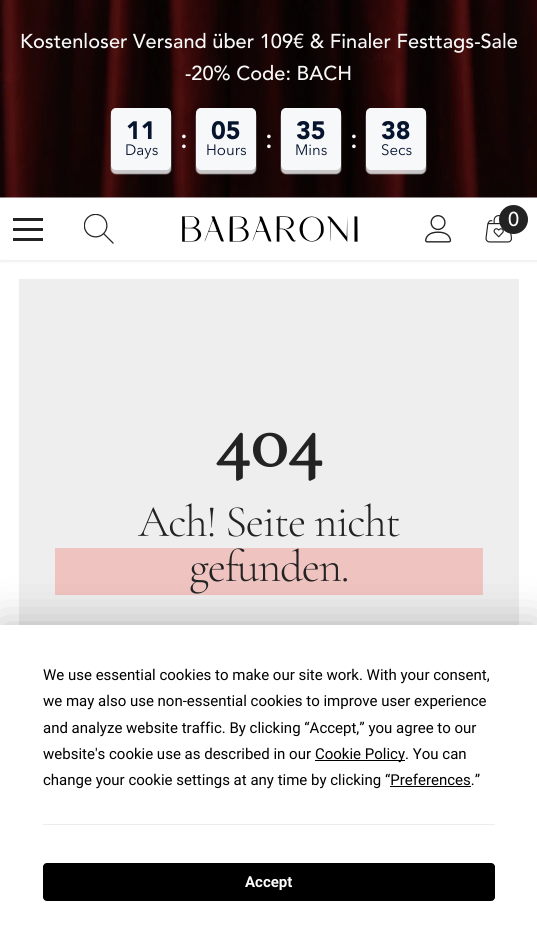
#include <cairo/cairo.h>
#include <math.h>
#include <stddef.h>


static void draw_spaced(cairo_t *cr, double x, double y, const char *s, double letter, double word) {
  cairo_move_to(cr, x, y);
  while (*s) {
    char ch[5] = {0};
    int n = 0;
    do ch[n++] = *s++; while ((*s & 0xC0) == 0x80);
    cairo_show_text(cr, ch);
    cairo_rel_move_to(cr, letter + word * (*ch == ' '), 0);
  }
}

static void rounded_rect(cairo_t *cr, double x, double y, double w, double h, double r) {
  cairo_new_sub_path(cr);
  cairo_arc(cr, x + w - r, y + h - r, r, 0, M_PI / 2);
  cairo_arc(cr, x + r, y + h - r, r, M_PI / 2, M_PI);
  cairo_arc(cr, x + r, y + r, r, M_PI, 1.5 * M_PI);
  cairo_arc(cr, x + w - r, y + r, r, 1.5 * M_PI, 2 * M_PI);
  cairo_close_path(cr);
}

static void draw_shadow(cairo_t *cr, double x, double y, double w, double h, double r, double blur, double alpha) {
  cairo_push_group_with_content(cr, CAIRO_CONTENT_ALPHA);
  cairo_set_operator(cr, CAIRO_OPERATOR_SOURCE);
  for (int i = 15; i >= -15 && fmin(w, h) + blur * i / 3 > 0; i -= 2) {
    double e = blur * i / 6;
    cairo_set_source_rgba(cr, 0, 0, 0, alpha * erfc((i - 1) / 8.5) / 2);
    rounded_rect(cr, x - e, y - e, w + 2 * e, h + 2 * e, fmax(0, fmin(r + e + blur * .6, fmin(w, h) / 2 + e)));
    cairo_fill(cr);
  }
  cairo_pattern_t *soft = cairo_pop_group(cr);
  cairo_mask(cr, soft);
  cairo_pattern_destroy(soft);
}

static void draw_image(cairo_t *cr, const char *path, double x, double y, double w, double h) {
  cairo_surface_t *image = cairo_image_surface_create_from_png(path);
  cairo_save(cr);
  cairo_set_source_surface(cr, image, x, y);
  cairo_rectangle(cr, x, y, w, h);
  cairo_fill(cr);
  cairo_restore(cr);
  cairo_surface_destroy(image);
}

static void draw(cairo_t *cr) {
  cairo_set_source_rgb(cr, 1, 1, 1);
  cairo_paint(cr);
  draw_image(cr, "images/1.png", 0, 0, 537, 198);
  cairo_set_source_rgb(cr, 247 / 255.0, 248 / 255.0, 250 / 255.0);
  draw_shadow(cr, 111, 111, 60, 63, 5, 0.5, 0.8);
  cairo_set_source_rgb(cr, 247 / 255.0, 248 / 255.0, 250 / 255.0);
  rounded_rect(cr, 111.5, 108.5, 59, 61, 4.5);
  cairo_fill_preserve(cr);
  cairo_set_line_width(cr, 1);
  cairo_stroke(cr);
  cairo_set_source_rgb(cr, 247 / 255.0, 248 / 255.0, 250 / 255.0);
  draw_shadow(cr, 196, 111, 60, 63, 5, 0.5, 0.8);
  cairo_set_source_rgb(cr, 247 / 255.0, 248 / 255.0, 250 / 255.0);
  rounded_rect(cr, 196.5, 108.5, 59, 61, 4.5);
  cairo_fill_preserve(cr);
  cairo_stroke(cr);
  cairo_set_source_rgb(cr, 247 / 255.0, 248 / 255.0, 250 / 255.0);
  draw_shadow(cr, 281, 111, 60, 63, 5, 0.5, 0.8);
  cairo_set_source_rgb(cr, 247 / 255.0, 248 / 255.0, 250 / 255.0);
  rounded_rect(cr, 281.5, 108.5, 59, 61, 4.5);
  cairo_fill_preserve(cr);
  cairo_stroke(cr);
  cairo_set_source_rgb(cr, 247 / 255.0, 248 / 255.0, 250 / 255.0);
  draw_shadow(cr, 366, 111, 60, 63, 5, 0.5, 0.8);
  cairo_set_source_rgb(cr, 247 / 255.0, 248 / 255.0, 250 / 255.0);
  rounded_rect(cr, 366.5, 108.5, 59, 61, 4.5);
  cairo_fill_preserve(cr);
  cairo_stroke(cr);
  cairo_save(cr);
  cairo_rectangle(cr, 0, 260, 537, 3);
  cairo_clip(cr);
  cairo_set_source_rgb(cr, 0, 0, 0);
  draw_shadow(cr, 0, 199, 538, 62, 0, 2, 0.1);
  cairo_restore(cr);
  cairo_set_source_rgb(cr, 35 / 255.0, 35 / 255.0, 35 / 255.0);
  cairo_rectangle(cr, 13, 228, 30, 3);
  cairo_fill(cr);
  cairo_rectangle(cr, 13, 218, 30, 3);
  cairo_fill(cr);
  cairo_rectangle(cr, 13, 238, 30, 3);
  cairo_fill(cr);
  draw_image(cr, "images/2.png", 84, 214, 30, 30);
  draw_image(cr, "images/3.png", 182, 216, 176, 26);
  draw_image(cr, "images/4.png", 425, 215, 27, 28);
  draw_image(cr, "images/5.png", 485, 215, 27, 28);
  cairo_arc(cr, 513.5, 219.5, 14.5, 0, 2 * M_PI);
  cairo_fill(cr);
  cairo_set_source_rgb(cr, 238 / 255.0, 238 / 255.0, 238 / 255.0);
  cairo_rectangle(cr, 19, 279, 500, 346);
  cairo_fill(cr);
  cairo_set_source_rgb(cr, 239 / 255.0, 195 / 255.0, 192 / 255.0);
  cairo_rectangle(cr, 55, 548, 428, 47);
  cairo_fill(cr);
  cairo_set_source_rgb(cr, 0, 0, 0);
  draw_shadow(cr, 0, 625, 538, 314, 0, 22, 0.25);
  cairo_set_source_rgb(cr, 1, 1, 1);
  cairo_rectangle(cr, 0, 625, 537, 313);
  cairo_fill(cr);
  cairo_set_source_rgb(cr, 0, 0, 0);
  cairo_rectangle(cr, 315, 760, 90, 1);
  cairo_fill(cr);
  cairo_rectangle(cr, 390, 786, 81, 1);
  cairo_fill(cr);
  cairo_set_source_rgb(cr, 237 / 255.0, 237 / 255.0, 239 / 255.0);
  cairo_rectangle(cr, 43, 824, 452, 1);
  cairo_fill(cr);
  cairo_set_source_rgb(cr, 0, 0, 0);
  rounded_rect(cr, 43.5, 863.5, 451, 37, 3.5);
  cairo_fill_preserve(cr);
  cairo_stroke(cr);
  cairo_select_font_face(cr, "Avenir Medium", CAIRO_FONT_SLANT_NORMAL, CAIRO_FONT_WEIGHT_NORMAL);
  cairo_set_font_size(cr, 20);
  cairo_set_source_rgb(cr, 248 / 255.0, 248 / 255.0, 248 / 255.0);
  cairo_move_to(cr, 20, 48);
  cairo_show_text(cr, "Kostenloser Versand über 109€ & Finaler Festtags-Sale");
  cairo_move_to(cr, 185, 80);
  cairo_show_text(cr, "-20% Code: BACH");
  cairo_select_font_face(cr, "Avenir Black", CAIRO_FONT_SLANT_NORMAL, CAIRO_FONT_WEIGHT_NORMAL);
  cairo_set_font_size(cr, 25);
  cairo_set_source_rgb(cr, 6 / 255.0, 20 / 255.0, 46 / 255.0);
  cairo_move_to(cr, 126, 139);
  cairo_show_text(cr, "11");
  cairo_select_font_face(cr, "Avenir Medium", CAIRO_FONT_SLANT_NORMAL, CAIRO_FONT_WEIGHT_NORMAL);
  cairo_set_font_size(cr, 28);
  cairo_set_source_rgb(cr, 248 / 255.0, 248 / 255.0, 248 / 255.0);
  cairo_move_to(cr, 180, 148);
  cairo_show_text(cr, ":");
  cairo_select_font_face(cr, "Avenir Next", CAIRO_FONT_SLANT_NORMAL, CAIRO_FONT_WEIGHT_NORMAL);
  cairo_set_font_size(cr, 15);
  cairo_set_source_rgb(cr, 6 / 255.0, 20 / 255.0, 46 / 255.0);
  cairo_move_to(cr, 125, 155);
  cairo_show_text(cr, "Days");
  cairo_select_font_face(cr, "Avenir Black", CAIRO_FONT_SLANT_NORMAL, CAIRO_FONT_WEIGHT_NORMAL);
  cairo_set_font_size(cr, 25);
  cairo_move_to(cr, 211, 139);
  cairo_show_text(cr, "05");
  cairo_select_font_face(cr, "Avenir Next", CAIRO_FONT_SLANT_NORMAL, CAIRO_FONT_WEIGHT_NORMAL);
  cairo_set_font_size(cr, 15);
  cairo_move_to(cr, 206, 155);
  cairo_show_text(cr, "Hours");
  cairo_select_font_face(cr, "Avenir Medium", CAIRO_FONT_SLANT_NORMAL, CAIRO_FONT_WEIGHT_NORMAL);
  cairo_set_font_size(cr, 28);
  cairo_set_source_rgb(cr, 248 / 255.0, 248 / 255.0, 248 / 255.0);
  cairo_move_to(cr, 265, 148);
  cairo_show_text(cr, ":");
  cairo_select_font_face(cr, "Avenir Black", CAIRO_FONT_SLANT_NORMAL, CAIRO_FONT_WEIGHT_NORMAL);
  cairo_set_font_size(cr, 25);
  cairo_set_source_rgb(cr, 6 / 255.0, 20 / 255.0, 46 / 255.0);
  cairo_move_to(cr, 296, 139);
  cairo_show_text(cr, "35");
  cairo_select_font_face(cr, "Avenir Next", CAIRO_FONT_SLANT_NORMAL, CAIRO_FONT_WEIGHT_NORMAL);
  cairo_set_font_size(cr, 15);
  cairo_move_to(cr, 295, 155);
  cairo_show_text(cr, "Mins");
  cairo_select_font_face(cr, "Avenir Medium", CAIRO_FONT_SLANT_NORMAL, CAIRO_FONT_WEIGHT_NORMAL);
  cairo_set_font_size(cr, 28);
  cairo_set_source_rgb(cr, 248 / 255.0, 248 / 255.0, 248 / 255.0);
  cairo_move_to(cr, 350, 148);
  cairo_show_text(cr, ":");
  cairo_select_font_face(cr, "Avenir Black", CAIRO_FONT_SLANT_NORMAL, CAIRO_FONT_WEIGHT_NORMAL);
  cairo_set_font_size(cr, 25);
  cairo_set_source_rgb(cr, 6 / 255.0, 20 / 255.0, 46 / 255.0);
  cairo_move_to(cr, 381, 139);
  cairo_show_text(cr, "38");
  cairo_select_font_face(cr, "Avenir Next", CAIRO_FONT_SLANT_NORMAL, CAIRO_FONT_WEIGHT_NORMAL);
  cairo_set_font_size(cr, 15);
  cairo_move_to(cr, 381, 155);
  cairo_show_text(cr, "Secs");
  cairo_select_font_face(cr, "Avenir Medium", CAIRO_FONT_SLANT_NORMAL, CAIRO_FONT_WEIGHT_NORMAL);
  cairo_set_font_size(cr, 20);
  cairo_set_source_rgb(cr, 1, 1, 1);
  cairo_move_to(cr, 508, 226);
  cairo_show_text(cr, "0");
  cairo_select_font_face(cr, "Cormorant Garamond", CAIRO_FONT_SLANT_NORMAL, CAIRO_FONT_WEIGHT_BOLD);
  cairo_set_font_size(cr, 78);
  cairo_set_source_rgb(cr, 35 / 255.0, 35 / 255.0, 35 / 255.0);
  cairo_move_to(cr, 215, 466);
  cairo_show_text(cr, "404");
  cairo_select_font_face(cr, "Cormorant Garamond Light", CAIRO_FONT_SLANT_NORMAL, CAIRO_FONT_WEIGHT_NORMAL);
  cairo_set_font_size(cr, 45);
  draw_spaced(cr, 138, 536, "Ach! Seite nicht", -1.25, 0);
  draw_spaced(cr, 189, 581, "gefunden.", -1.25, 0);
  cairo_select_font_face(cr, "Roboto", CAIRO_FONT_SLANT_NORMAL, CAIRO_FONT_WEIGHT_NORMAL);
  cairo_set_font_size(cr, 15);
  cairo_set_source_rgb(cr, 0, 0, 0);
  cairo_move_to(cr, 43, 680);
  cairo_show_text(cr, "We use essential cookies to make our site work. With your consent,");
  cairo_move_to(cr, 43, 706);
  cairo_show_text(cr, "we may also use non-essential cookies to improve user experience");
  cairo_move_to(cr, 43, 733);
  cairo_show_text(cr, "and analyze website traffic. By clicking “Accept,” you agree to our");
  cairo_move_to(cr, 43, 759);
  cairo_show_text(cr, "website's cookie use as described in our");
  cairo_move_to(cr, 315, 759);
  cairo_show_text(cr, "Cookie Policy. You can");
  cairo_move_to(cr, 43, 785);
  cairo_show_text(cr, "change your cookie settings at any time by clicking “Preferences.”");
  cairo_select_font_face(cr, "Roboto", CAIRO_FONT_SLANT_NORMAL, CAIRO_FONT_WEIGHT_BOLD);
  cairo_set_source_rgb(cr, 1, 1, 1);
  cairo_move_to(cr, 245, 887);
  cairo_show_text(cr, "Accept");
}

int main(void) {
  cairo_surface_t *surface = cairo_image_surface_create(CAIRO_FORMAT_RGB24, 537, 938);
  cairo_t *cr = cairo_create(surface);
  cairo_font_options_t *options = cairo_font_options_create();
  cairo_font_options_set_hint_metrics(options, CAIRO_HINT_METRICS_OFF);
  cairo_font_options_set_hint_style(options, CAIRO_HINT_STYLE_NONE);
  cairo_set_font_options(cr, options);
  cairo_set_miter_limit(cr, 4);
  draw(cr);
  cairo_surface_write_to_png(surface, "out.png");
  cairo_font_options_destroy(options);
  cairo_destroy(cr);
  cairo_surface_destroy(surface);
  return 0;
}
